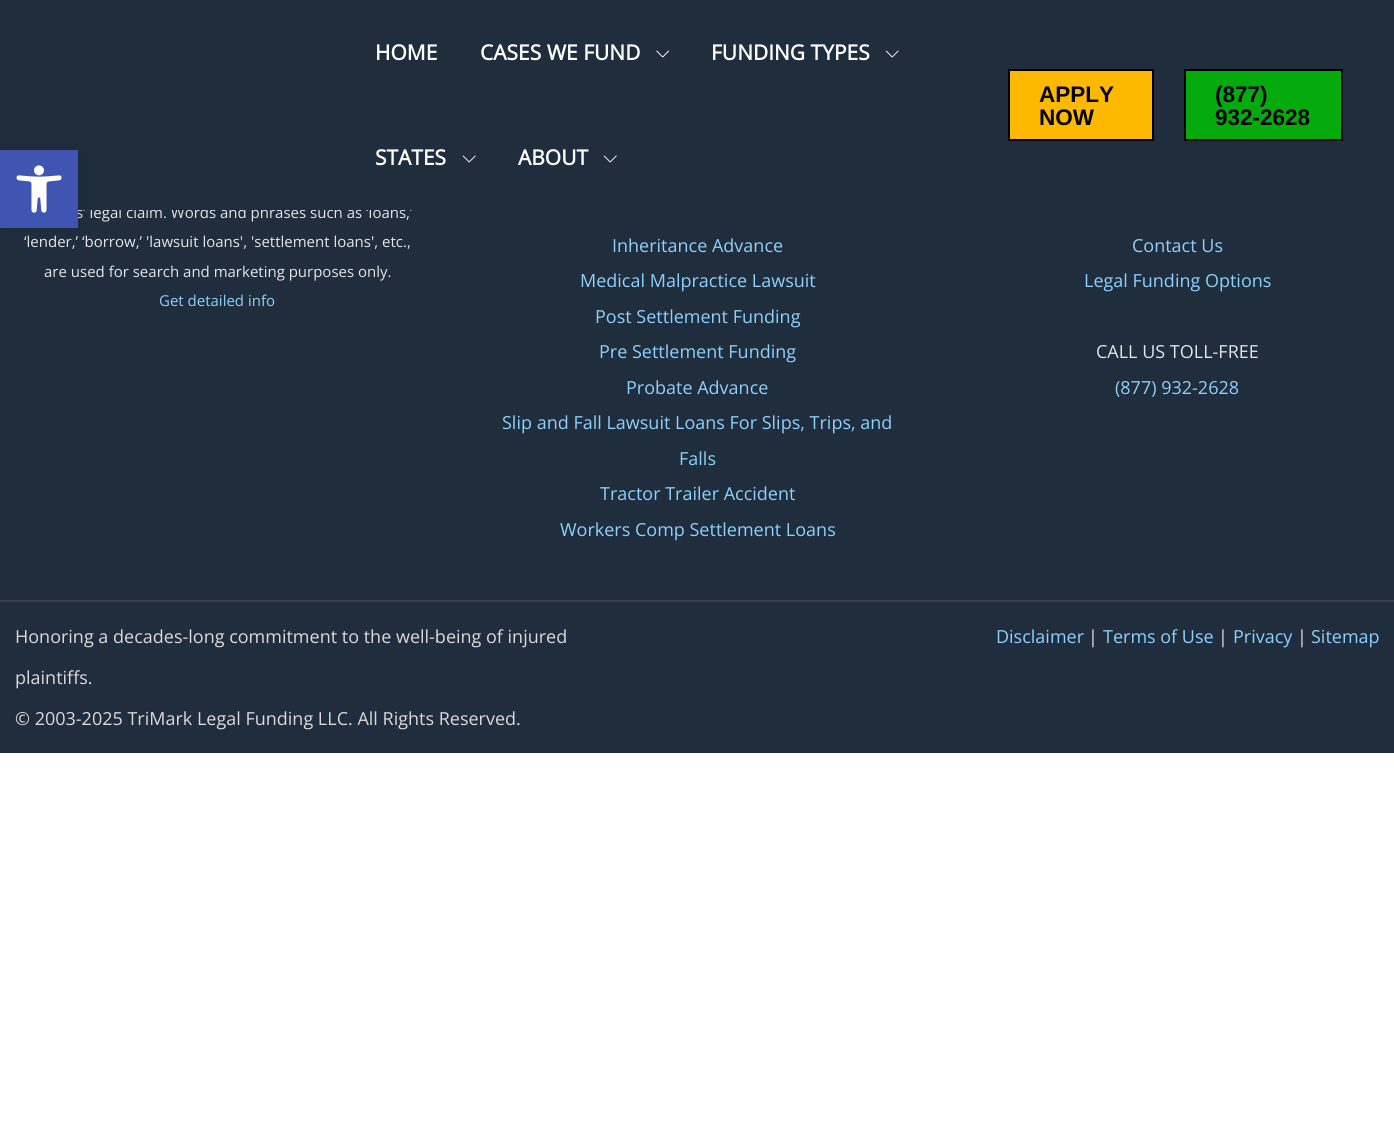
#include <cairo/cairo.h>
#include <math.h>
#include <stddef.h>


static void rounded_rect(cairo_t *cr, double x, double y, double w, double h, double r) {
  cairo_new_sub_path(cr);
  cairo_arc(cr, x + w - r, y + h - r, r, 0, M_PI / 2);
  cairo_arc(cr, x + r, y + h - r, r, M_PI / 2, M_PI);
  cairo_arc(cr, x + r, y + r, r, M_PI, 1.5 * M_PI);
  cairo_arc(cr, x + w - r, y + r, r, 1.5 * M_PI, 2 * M_PI);
  cairo_close_path(cr);
}

static void draw_shadow(cairo_t *cr, double x, double y, double w, double h, double r, double blur, double alpha) {
  cairo_push_group_with_content(cr, CAIRO_CONTENT_ALPHA);
  cairo_set_operator(cr, CAIRO_OPERATOR_SOURCE);
  for (int i = 15; i >= -15 && fmin(w, h) + blur * i / 3 > 0; i -= 2) {
    double e = blur * i / 6;
    cairo_set_source_rgba(cr, 0, 0, 0, alpha * erfc((i - 1) / 8.5) / 2);
    rounded_rect(cr, x - e, y - e, w + 2 * e, h + 2 * e, fmax(0, fmin(r + e + blur * .6, fmin(w, h) / 2 + e)));
    cairo_fill(cr);
  }
  cairo_pattern_t *soft = cairo_pop_group(cr);
  cairo_mask(cr, soft);
  cairo_pattern_destroy(soft);
}

static void draw_image(cairo_t *cr, const char *path, double x, double y, double w, double h) {
  cairo_surface_t *image = cairo_image_surface_create_from_png(path);
  cairo_save(cr);
  cairo_set_source_surface(cr, image, x, y);
  cairo_rectangle(cr, x, y, w, h);
  cairo_fill(cr);
  cairo_restore(cr);
  cairo_surface_destroy(image);
}

static void draw(cairo_t *cr) {
  cairo_set_source_rgb(cr, 1, 1, 1);
  cairo_paint(cr);
  cairo_set_source_rgb(cr, 31 / 255.0, 45 / 255.0, 61 / 255.0);
  cairo_rectangle(cr, 0, 210, 1394, 390);
  cairo_fill(cr);
  cairo_rectangle(cr, 0, 602, 1394, 151);
  cairo_fill(cr);
  cairo_set_source_rgb(cr, 61 / 255.0, 61 / 255.0, 61 / 255.0);
  cairo_rectangle(cr, 0, 600, 1394, 2);
  cairo_fill(cr);
  cairo_select_font_face(cr, "Open Sans", CAIRO_FONT_SLANT_NORMAL, CAIRO_FONT_WEIGHT_NORMAL);
  cairo_set_font_size(cr, 15);
  cairo_set_source_rgb(cr, 229 / 255.0, 229 / 255.0, 229 / 255.0);
  cairo_move_to(cr, 76, 218);
  cairo_show_text(cr, "s’ legal claim. Words and phrases such as ‘loans,’");
  cairo_set_source_rgb(cr, 31 / 255.0, 45 / 255.0, 61 / 255.0);
  cairo_rectangle(cr, 0, 0, 1394, 210);
  cairo_fill(cr);
  draw_image(cr, "images/2.png", 603, 155, 14, 8);
  cairo_select_font_face(cr, "Open Sans", CAIRO_FONT_SLANT_NORMAL, CAIRO_FONT_WEIGHT_BOLD);
  cairo_set_font_size(cr, 21);
  cairo_set_source_rgb(cr, 254 / 255.0, 254 / 255.0, 254 / 255.0);
  cairo_move_to(cr, 518, 165);
  cairo_show_text(cr, "ABOUT");
  draw_image(cr, "images/2.png", 462, 155, 14, 8);
  cairo_move_to(cr, 375, 165);
  cairo_show_text(cr, "STATES");
  draw_image(cr, "images/2.png", 885, 50, 14, 8);
  cairo_move_to(cr, 711, 60);
  cairo_show_text(cr, "FUNDING TYPES");
  draw_image(cr, "images/1.png", 656, 50, 14, 8);
  cairo_move_to(cr, 480, 60);
  cairo_show_text(cr, "CASES WE FUND");
  cairo_move_to(cr, 375, 60);
  cairo_show_text(cr, "HOME");
  cairo_set_source_rgb(cr, 5 / 255.0, 171 / 255.0, 13 / 255.0);
  cairo_rectangle(cr, 1185, 70, 157, 70);
  cairo_fill_preserve(cr);
  cairo_set_source_rgb(cr, 0, 0, 0);
  cairo_stroke(cr);
  cairo_select_font_face(cr, "Liberation Sans", CAIRO_FONT_SLANT_NORMAL, CAIRO_FONT_WEIGHT_BOLD);
  cairo_set_font_size(cr, 22.5);
  cairo_move_to(cr, 1215, 125);
  cairo_show_text(cr, "932-2628");
  cairo_move_to(cr, 1215, 102);
  cairo_show_text(cr, "(877)");
  cairo_set_source_rgb(cr, 252 / 255.0, 185 / 255.0, 0);
  cairo_rectangle(cr, 1009, 70, 144, 70);
  cairo_fill_preserve(cr);
  cairo_set_source_rgb(cr, 0, 0, 0);
  cairo_stroke(cr);
  cairo_move_to(cr, 1039, 125);
  cairo_show_text(cr, "NOW");
  cairo_move_to(cr, 1039, 102);
  cairo_show_text(cr, "APPLY");
  cairo_select_font_face(cr, "Open Sans", CAIRO_FONT_SLANT_NORMAL, CAIRO_FONT_WEIGHT_NORMAL);
  cairo_set_font_size(cr, 15);
  cairo_set_source_rgb(cr, 229 / 255.0, 229 / 255.0, 229 / 255.0);
  cairo_move_to(cr, 24, 247);
  cairo_show_text(cr, "‘lender,’ ‘borrow,’ 'lawsuit loans', 'settlement loans', etc.,");
  cairo_move_to(cr, 44, 277);
  cairo_show_text(cr, "are used for search and marketing purposes only.");
  cairo_set_source_rgb(cr, 142 / 255.0, 209 / 255.0, 252 / 255.0);
  cairo_move_to(cr, 159, 306);
  cairo_show_text(cr, "Get detailed info");
  cairo_set_font_size(cr, 18);
  cairo_move_to(cr, 612, 252);
  cairo_show_text(cr, "Inheritance Advance");
  cairo_move_to(cr, 580, 287);
  cairo_show_text(cr, "Medical Malpractice Lawsuit");
  cairo_move_to(cr, 595, 323);
  cairo_show_text(cr, "Post Settlement Funding");
  cairo_move_to(cr, 599, 358);
  cairo_show_text(cr, "Pre Settlement Funding");
  cairo_move_to(cr, 626, 394);
  cairo_show_text(cr, "Probate Advance");
  cairo_move_to(cr, 502, 429);
  cairo_show_text(cr, "Slip and Fall Lawsuit Loans For Slips, Trips, and");
  cairo_move_to(cr, 679, 465);
  cairo_show_text(cr, "Falls");
  cairo_move_to(cr, 600, 500);
  cairo_show_text(cr, "Tractor Trailer Accident");
  cairo_move_to(cr, 560, 536);
  cairo_show_text(cr, "Workers Comp Settlement Loans");
  cairo_move_to(cr, 1132, 252);
  cairo_show_text(cr, "Contact Us");
  cairo_move_to(cr, 1084, 287);
  cairo_show_text(cr, "Legal Funding Options");
  cairo_set_source_rgb(cr, 229 / 255.0, 229 / 255.0, 229 / 255.0);
  cairo_move_to(cr, 1096, 358);
  cairo_show_text(cr, "CALL US TOLL-FREE");
  cairo_set_source_rgb(cr, 142 / 255.0, 209 / 255.0, 252 / 255.0);
  cairo_move_to(cr, 1115, 394);
  cairo_show_text(cr, "(877) 932-2628");
  cairo_set_source_rgb(cr, 222 / 255.0, 217 / 255.0, 217 / 255.0);
  cairo_move_to(cr, 15, 643);
  cairo_show_text(cr, "Honoring a decades-long commitment to the well-being of injured");
  cairo_move_to(cr, 15, 684);
  cairo_show_text(cr, "plaintiffs.");
  cairo_move_to(cr, 15, 725);
  cairo_show_text(cr, "© 2003-2025 TriMark Legal Funding LLC. All Rights Reserved.");
  cairo_set_source_rgb(cr, 142 / 255.0, 209 / 255.0, 252 / 255.0);
  cairo_move_to(cr, 996, 643);
  cairo_show_text(cr, "Disclaimer");
  cairo_set_source_rgb(cr, 229 / 255.0, 229 / 255.0, 229 / 255.0);
  cairo_move_to(cr, 1088, 643);
  cairo_show_text(cr, "|");
  cairo_set_source_rgb(cr, 142 / 255.0, 209 / 255.0, 252 / 255.0);
  cairo_move_to(cr, 1103, 643);
  cairo_show_text(cr, "Terms of Use");
  cairo_set_source_rgb(cr, 229 / 255.0, 229 / 255.0, 229 / 255.0);
  cairo_move_to(cr, 1218, 643);
  cairo_show_text(cr, "|");
  cairo_set_source_rgb(cr, 142 / 255.0, 209 / 255.0, 252 / 255.0);
  cairo_move_to(cr, 1233, 643);
  cairo_show_text(cr, "Privacy");
  cairo_set_source_rgb(cr, 229 / 255.0, 229 / 255.0, 229 / 255.0);
  cairo_move_to(cr, 1297, 643);
  cairo_show_text(cr, "|");
  cairo_set_source_rgb(cr, 142 / 255.0, 209 / 255.0, 252 / 255.0);
  cairo_move_to(cr, 1311, 643);
  cairo_show_text(cr, "Sitemap");
  cairo_set_source_rgb(cr, 0, 0, 0);
  draw_shadow(cr, 0, 150, 78, 78, 0, 7.5, 0.1);
  cairo_set_source_rgb(cr, 64 / 255.0, 84 / 255.0, 178 / 255.0);
  cairo_rectangle(cr, 0, 150, 78, 78);
  cairo_fill(cr);
  draw_image(cr, "images/3.png", 16, 165, 46, 48);
}

int main(void) {
  cairo_surface_t *surface = cairo_image_surface_create(CAIRO_FORMAT_RGB24, 1394, 1143);
  cairo_t *cr = cairo_create(surface);
  cairo_font_options_t *options = cairo_font_options_create();
  cairo_font_options_set_hint_metrics(options, CAIRO_HINT_METRICS_OFF);
  cairo_font_options_set_hint_style(options, CAIRO_HINT_STYLE_NONE);
  cairo_set_font_options(cr, options);
  cairo_set_miter_limit(cr, 4);
  draw(cr);
  cairo_surface_write_to_png(surface, "out.png");
  cairo_font_options_destroy(options);
  cairo_destroy(cr);
  cairo_surface_destroy(surface);
  return 0;
}
